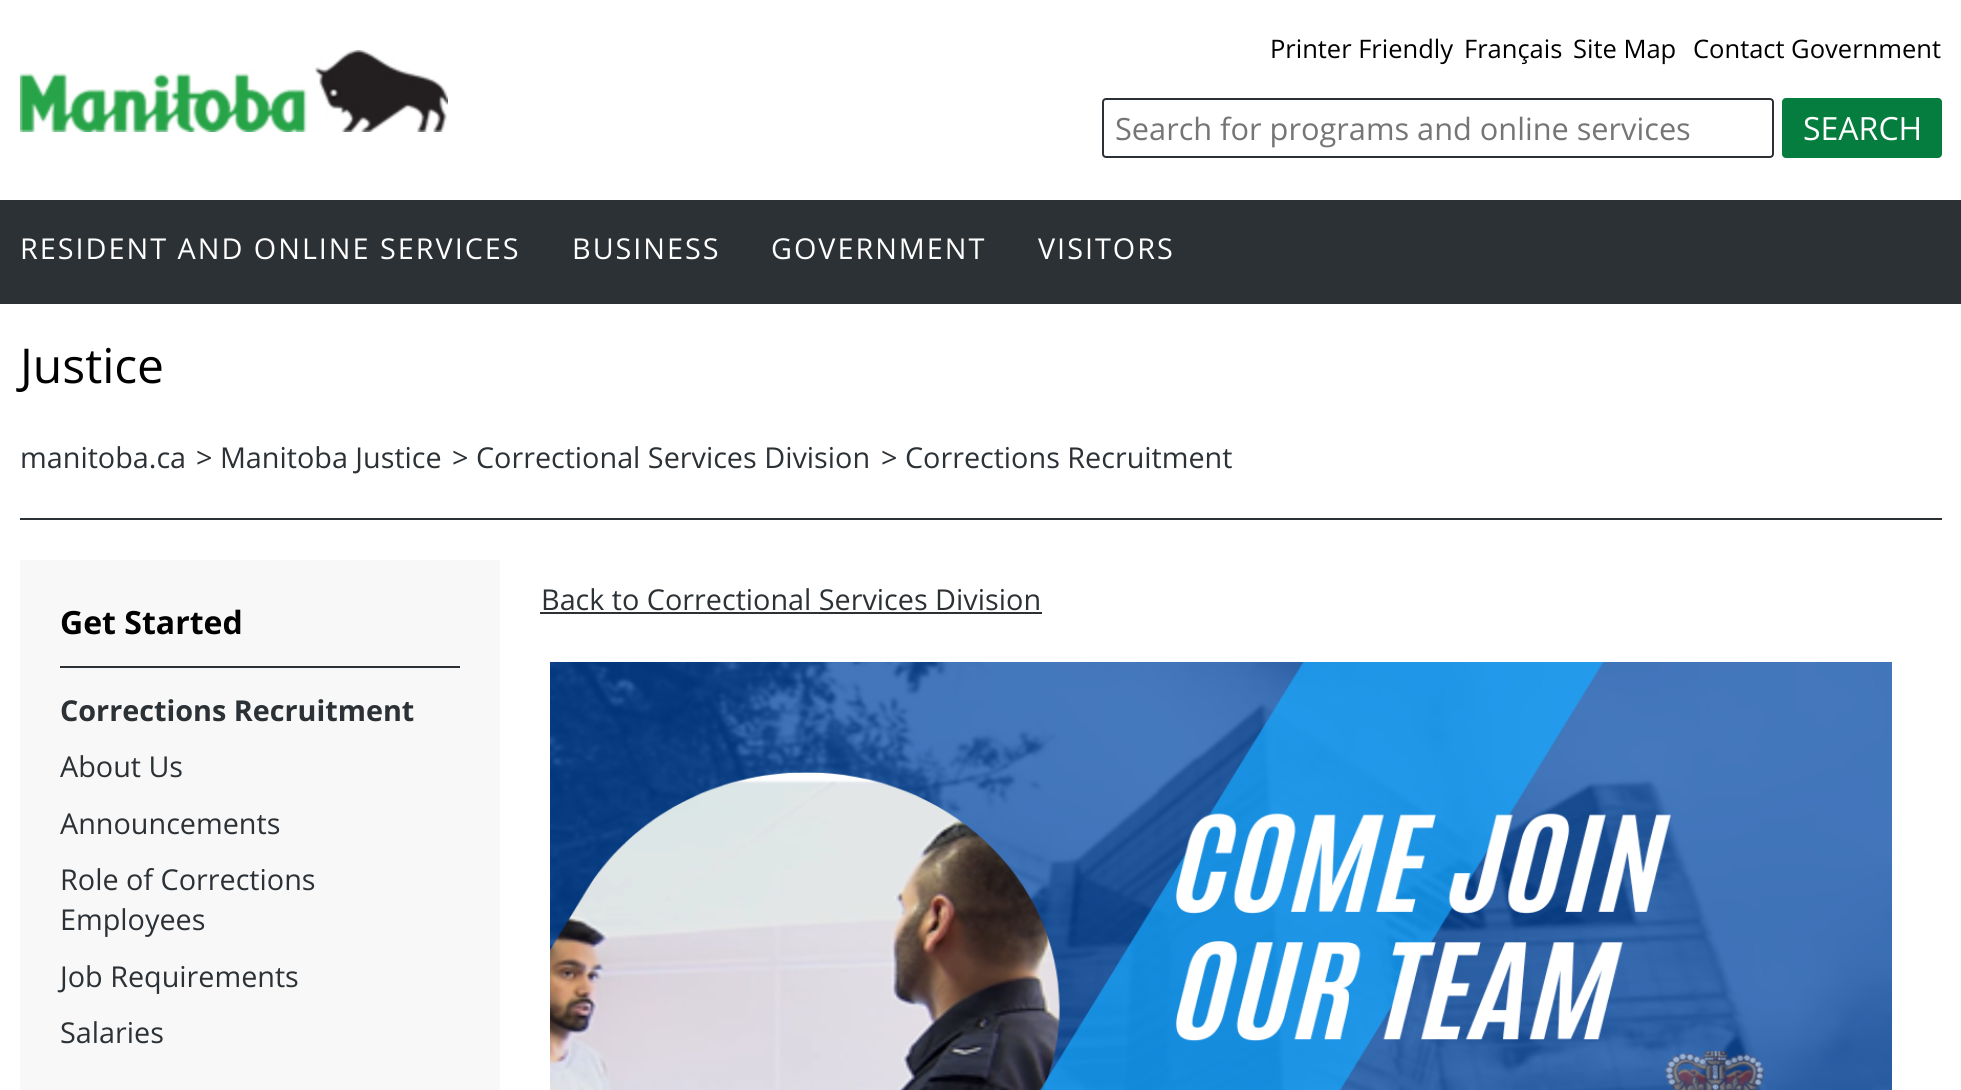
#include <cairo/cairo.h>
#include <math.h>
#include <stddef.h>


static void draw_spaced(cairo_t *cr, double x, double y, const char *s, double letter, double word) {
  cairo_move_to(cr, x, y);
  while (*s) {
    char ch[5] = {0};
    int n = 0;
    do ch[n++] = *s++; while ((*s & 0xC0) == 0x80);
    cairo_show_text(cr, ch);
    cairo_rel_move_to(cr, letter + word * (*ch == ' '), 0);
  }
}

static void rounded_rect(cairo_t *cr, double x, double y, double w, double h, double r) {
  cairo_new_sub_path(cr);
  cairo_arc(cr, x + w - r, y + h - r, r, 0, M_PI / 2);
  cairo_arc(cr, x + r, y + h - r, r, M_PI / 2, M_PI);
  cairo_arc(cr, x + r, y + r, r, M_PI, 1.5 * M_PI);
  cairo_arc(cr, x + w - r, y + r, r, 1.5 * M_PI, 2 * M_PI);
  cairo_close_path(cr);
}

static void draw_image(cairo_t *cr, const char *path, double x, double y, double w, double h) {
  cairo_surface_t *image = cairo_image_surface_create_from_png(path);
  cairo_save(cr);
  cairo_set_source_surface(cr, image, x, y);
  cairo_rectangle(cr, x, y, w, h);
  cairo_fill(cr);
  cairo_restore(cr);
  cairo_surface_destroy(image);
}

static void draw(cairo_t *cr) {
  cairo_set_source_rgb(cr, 1, 1, 1);
  cairo_paint(cr);
  draw_image(cr, "images/1.png", 20, 50, 428, 82);
  rounded_rect(cr, 1103, 99, 670, 58, 3);
  cairo_set_source_rgb(cr, 44 / 255.0, 49 / 255.0, 53 / 255.0);
  cairo_stroke(cr);
  cairo_set_source_rgb(cr, 5 / 255.0, 125 / 255.0, 62 / 255.0);
  rounded_rect(cr, 1782, 98, 160, 60, 4);
  cairo_fill(cr);
  cairo_set_source_rgb(cr, 44 / 255.0, 49 / 255.0, 53 / 255.0);
  cairo_rectangle(cr, 0, 200, 1961, 104);
  cairo_fill(cr);
  cairo_rectangle(cr, 20, 518, 1922, 2);
  cairo_fill(cr);
  cairo_rectangle(cr, 540, 612, 502, 2);
  cairo_fill(cr);
  draw_image(cr, "images/2.png", 550, 662, 1342, 428);
  cairo_set_source_rgb(cr, 248 / 255.0, 248 / 255.0, 248 / 255.0);
  cairo_rectangle(cr, 20, 560, 480, 530);
  cairo_fill(cr);
  cairo_set_source_rgb(cr, 44 / 255.0, 49 / 255.0, 53 / 255.0);
  cairo_rectangle(cr, 60, 666, 400, 2);
  cairo_fill(cr);
  cairo_select_font_face(cr, "Open Sans", CAIRO_FONT_SLANT_NORMAL, CAIRO_FONT_WEIGHT_NORMAL);
  cairo_set_font_size(cr, 25.5);
  cairo_set_source_rgb(cr, 0, 0, 0);
  cairo_move_to(cr, 1270, 58);
  cairo_show_text(cr, "Printer Friendly");
  cairo_move_to(cr, 1464, 58);
  cairo_show_text(cr, "Français");
  cairo_move_to(cr, 1573, 58);
  cairo_show_text(cr, "Site Map");
  cairo_move_to(cr, 1693, 58);
  cairo_show_text(cr, "Contact Government");
  cairo_set_font_size(cr, 30.7);
  cairo_set_source_rgb(cr, 117 / 255.0, 117 / 255.0, 117 / 255.0);
  cairo_move_to(cr, 1115, 140);
  cairo_show_text(cr, "Search for programs and online services");
  cairo_set_font_size(cr, 32);
  cairo_set_source_rgb(cr, 1, 1, 1);
  cairo_move_to(cr, 1803, 140);
  cairo_show_text(cr, "SEARCH");
  cairo_set_font_size(cr, 28.75);
  draw_spaced(cr, 20, 259, "RESIDENT AND ONLINE SERVICES", 2, 0);
  draw_spaced(cr, 572, 259, "BUSINESS", 2, 0);
  draw_spaced(cr, 771, 259, "GOVERNMENT", 2, 0);
  draw_spaced(cr, 1038, 259, "VISITORS", 2, 0);
  cairo_set_font_size(cr, 48);
  cairo_set_source_rgb(cr, 0, 0, 0);
  cairo_move_to(cr, 20, 383);
  cairo_show_text(cr, "Justice");
  cairo_set_font_size(cr, 28.75);
  cairo_set_source_rgb(cr, 44 / 255.0, 49 / 255.0, 53 / 255.0);
  cairo_move_to(cr, 20, 468);
  cairo_show_text(cr, "manitoba.ca");
  cairo_move_to(cr, 196, 468);
  cairo_show_text(cr, "> Manitoba Justice");
  cairo_move_to(cr, 452, 468);
  cairo_show_text(cr, "> Correctional Services Division");
  cairo_move_to(cr, 881, 468);
  cairo_show_text(cr, "> Corrections Recruitment");
  cairo_move_to(cr, 541, 610);
  cairo_show_text(cr, "Back to Correctional Services Division");
  cairo_select_font_face(cr, "Open Sans", CAIRO_FONT_SLANT_NORMAL, CAIRO_FONT_WEIGHT_BOLD);
  cairo_set_font_size(cr, 32);
  cairo_set_source_rgb(cr, 0, 0, 0);
  cairo_move_to(cr, 60, 634);
  cairo_show_text(cr, "Get Started");
  cairo_set_font_size(cr, 28.75);
  cairo_set_source_rgb(cr, 44 / 255.0, 49 / 255.0, 53 / 255.0);
  cairo_move_to(cr, 60, 721);
  cairo_show_text(cr, "Corrections Recruitment");
  cairo_select_font_face(cr, "Open Sans", CAIRO_FONT_SLANT_NORMAL, CAIRO_FONT_WEIGHT_NORMAL);
  cairo_move_to(cr, 60, 777);
  cairo_show_text(cr, "About Us");
  cairo_move_to(cr, 60, 834);
  cairo_show_text(cr, "Announcements");
  cairo_move_to(cr, 60, 890);
  cairo_show_text(cr, "Role of Corrections");
  cairo_move_to(cr, 60, 930);
  cairo_show_text(cr, "Employees");
  cairo_move_to(cr, 60, 987);
  cairo_show_text(cr, "Job Requirements");
  cairo_move_to(cr, 60, 1043);
  cairo_show_text(cr, "Salaries");
}

int main(void) {
  cairo_surface_t *surface = cairo_image_surface_create(CAIRO_FORMAT_RGB24, 1961, 1090);
  cairo_t *cr = cairo_create(surface);
  cairo_font_options_t *options = cairo_font_options_create();
  cairo_font_options_set_hint_metrics(options, CAIRO_HINT_METRICS_OFF);
  cairo_font_options_set_hint_style(options, CAIRO_HINT_STYLE_NONE);
  cairo_set_font_options(cr, options);
  cairo_set_miter_limit(cr, 4);
  draw(cr);
  cairo_surface_write_to_png(surface, "out.png");
  cairo_font_options_destroy(options);
  cairo_destroy(cr);
  cairo_surface_destroy(surface);
  return 0;
}
